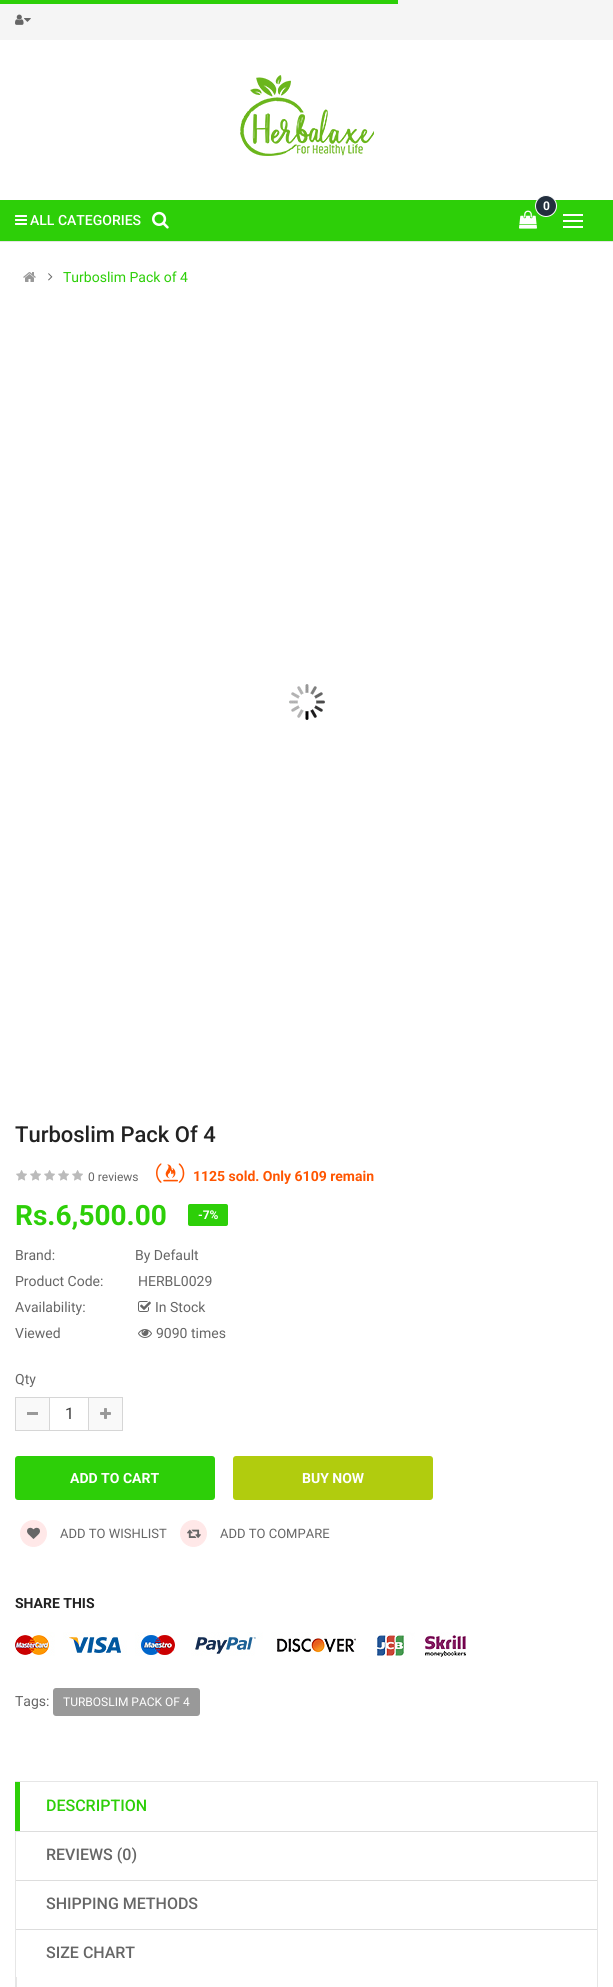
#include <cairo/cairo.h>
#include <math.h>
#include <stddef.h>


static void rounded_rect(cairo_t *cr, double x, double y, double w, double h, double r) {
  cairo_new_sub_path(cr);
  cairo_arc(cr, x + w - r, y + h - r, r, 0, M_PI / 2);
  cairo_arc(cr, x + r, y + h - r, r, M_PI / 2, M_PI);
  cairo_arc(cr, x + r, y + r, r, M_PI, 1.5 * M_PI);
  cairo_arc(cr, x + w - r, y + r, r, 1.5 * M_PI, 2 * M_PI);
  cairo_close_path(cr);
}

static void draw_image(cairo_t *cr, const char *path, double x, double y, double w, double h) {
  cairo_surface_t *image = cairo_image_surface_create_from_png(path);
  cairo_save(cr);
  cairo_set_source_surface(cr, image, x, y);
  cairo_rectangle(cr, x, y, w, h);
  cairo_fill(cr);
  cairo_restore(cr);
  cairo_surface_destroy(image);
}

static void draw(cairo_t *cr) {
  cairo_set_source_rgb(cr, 1, 1, 1);
  cairo_paint(cr);
  cairo_set_source_rgb(cr, 245 / 255.0, 245 / 255.0, 245 / 255.0);
  cairo_rectangle(cr, 0, 0, 613, 40);
  cairo_fill(cr);
  cairo_set_source_rgb(cr, 45 / 255.0, 207 / 255.0, 8 / 255.0);
  cairo_rectangle(cr, 0, 0, 398, 4);
  cairo_fill(cr);
  draw_image(cr, "images/1.png", 15, 14, 9, 11);
  draw_image(cr, "images/2.png", 24, 18, 7, 4);
  draw_image(cr, "images/3.png", 240, 75, 134, 81);
  cairo_rectangle(cr, 0, 200, 613, 41);
  cairo_fill(cr);
  draw_image(cr, "images/4.png", 519, 210, 18, 19);
  cairo_set_source_rgb(cr, 35 / 255.0, 47 / 255.0, 62 / 255.0);
  cairo_arc(cr, 546, 206, 10.5, 0, 2 * M_PI);
  cairo_fill_preserve(cr);
  cairo_set_source_rgb(cr, 1, 1, 1);
  cairo_set_line_width(cr, 1);
  cairo_stroke(cr);
  draw_image(cr, "images/5.png", 152, 211, 17, 18);
  cairo_set_source_rgb(cr, 229 / 255.0, 229 / 255.0, 229 / 255.0);
  cairo_rectangle(cr, 0, 241, 613, 1);
  cairo_fill(cr);
  draw_image(cr, "images/6.png", 15, 215, 12, 10);
  cairo_set_source_rgb(cr, 1, 1, 1);
  cairo_rectangle(cr, 563, 214, 20, 2);
  cairo_fill(cr);
  cairo_rectangle(cr, 563, 220, 20, 2);
  cairo_fill(cr);
  cairo_rectangle(cr, 563, 226, 20, 2);
  cairo_fill(cr);
  draw_image(cr, "images/7.png", 23, 272, 13, 10);
  draw_image(cr, "images/8.png", 48, 273, 5, 8);
  draw_image(cr, "images/9.png", 289, 684, 36, 36);
  draw_image(cr, "images/10.png", 16, 1170, 11, 11);
  draw_image(cr, "images/10.png", 30, 1170, 11, 11);
  draw_image(cr, "images/10.png", 44, 1170, 11, 11);
  draw_image(cr, "images/10.png", 58, 1170, 11, 11);
  draw_image(cr, "images/10.png", 72, 1170, 11, 11);
  draw_image(cr, "images/11.png", 156, 1163, 29, 20);
  cairo_set_source_rgb(cr, 45 / 255.0, 207 / 255.0, 8 / 255.0);
  rounded_rect(cr, 188, 1204, 40, 22, 2);
  cairo_fill(cr);
  draw_image(cr, "images/12.png", 138, 1301, 13, 11);
  draw_image(cr, "images/13.png", 138, 1329, 14, 9);
  cairo_rectangle(cr, 15.5, 1397.5, 107, 33);
  cairo_set_source_rgb(cr, 214 / 255.0, 214 / 255.0, 214 / 255.0);
  cairo_stroke(cr);
  cairo_set_source_rgb(cr, 249 / 255.0, 249 / 255.0, 249 / 255.0);
  cairo_rectangle(cr, 16, 1398, 33, 32);
  cairo_fill(cr);
  cairo_set_source_rgb(cr, 153 / 255.0, 153 / 255.0, 153 / 255.0);
  cairo_rectangle(cr, 27, 1412, 11, 3);
  cairo_fill(cr);
  cairo_set_source_rgb(cr, 214 / 255.0, 214 / 255.0, 214 / 255.0);
  cairo_rectangle(cr, 88, 1398, 1, 32);
  cairo_fill(cr);
  cairo_rectangle(cr, 49, 1398, 1, 32);
  cairo_fill(cr);
  cairo_set_source_rgb(cr, 249 / 255.0, 249 / 255.0, 249 / 255.0);
  cairo_rectangle(cr, 89, 1398, 33, 32);
  cairo_fill(cr);
  draw_image(cr, "images/14.png", 100, 1408, 11, 11);
  cairo_set_source_rgb(cr, 45 / 255.0, 207 / 255.0, 8 / 255.0);
  rounded_rect(cr, 15, 1456, 200, 44, 3);
  cairo_fill(cr);
  cairo_set_source_rgb(cr, 177 / 255.0, 204 / 255.0, 14 / 255.0);
  rounded_rect(cr, 233, 1456, 200, 44, 3);
  cairo_fill(cr);
  cairo_set_source_rgb(cr, 1, 232 / 255.0, 232 / 255.0);
  cairo_arc(cr, 33.5, 1533.5, 13, 0, 2 * M_PI);
  cairo_fill_preserve(cr);
  cairo_stroke(cr);
  draw_image(cr, "images/15.png", 27, 1527, 13, 12);
  cairo_arc(cr, 193.5, 1533.5, 13, 0, 2 * M_PI);
  cairo_fill_preserve(cr);
  cairo_stroke(cr);
  draw_image(cr, "images/16.png", 187, 1529, 14, 9);
  draw_image(cr, "images/17.png", 15, 1632, 451, 25);
  cairo_set_source_rgb(cr, 153 / 255.0, 153 / 255.0, 153 / 255.0);
  rounded_rect(cr, 53, 1688, 147, 28, 3);
  cairo_fill(cr);
  cairo_set_source_rgb(cr, 230 / 255.0, 230 / 255.0, 230 / 255.0);
  cairo_rectangle(cr, 15, 1781, 583, 1);
  cairo_fill(cr);
  cairo_rectangle(cr, 597, 1781, 1, 206);
  cairo_fill(cr);
  cairo_rectangle(cr, 15, 1781, 1, 206);
  cairo_fill(cr);
  cairo_set_source_rgb(cr, 221 / 255.0, 221 / 255.0, 221 / 255.0);
  cairo_rectangle(cr, 16, 1831, 581, 1);
  cairo_fill(cr);
  cairo_set_source_rgb(cr, 45 / 255.0, 207 / 255.0, 8 / 255.0);
  cairo_rectangle(cr, 15, 1782, 5, 49);
  cairo_fill(cr);
  cairo_set_source_rgb(cr, 221 / 255.0, 221 / 255.0, 221 / 255.0);
  cairo_rectangle(cr, 16, 1880, 581, 1);
  cairo_fill(cr);
  cairo_rectangle(cr, 16, 1929, 581, 1);
  cairo_fill(cr);
  cairo_set_source_rgb(cr, 230 / 255.0, 230 / 255.0, 230 / 255.0);
  cairo_rectangle(cr, 16, 1977, 1, 10);
  cairo_fill(cr);
  cairo_select_font_face(cr, "Roboto", CAIRO_FONT_SLANT_NORMAL, CAIRO_FONT_WEIGHT_BOLD);
  cairo_set_font_size(cr, 12);
  cairo_set_source_rgb(cr, 1, 1, 1);
  cairo_move_to(cr, 543, 210);
  cairo_show_text(cr, "0");
  cairo_select_font_face(cr, "Roboto Medium", CAIRO_FONT_SLANT_NORMAL, CAIRO_FONT_WEIGHT_NORMAL);
  cairo_set_font_size(cr, 14);
  cairo_move_to(cr, 30, 225);
  cairo_show_text(cr, "ALL CATEGORIES");
  cairo_select_font_face(cr, "Roboto", CAIRO_FONT_SLANT_NORMAL, CAIRO_FONT_WEIGHT_NORMAL);
  cairo_set_source_rgb(cr, 45 / 255.0, 207 / 255.0, 8 / 255.0);
  cairo_move_to(cr, 63, 282);
  cairo_show_text(cr, "Turboslim Pack of 4");
  cairo_select_font_face(cr, "Roboto Medium", CAIRO_FONT_SLANT_NORMAL, CAIRO_FONT_WEIGHT_NORMAL);
  cairo_set_font_size(cr, 22);
  cairo_set_source_rgb(cr, 34 / 255.0, 34 / 255.0, 34 / 255.0);
  cairo_move_to(cr, 15, 1142);
  cairo_show_text(cr, "Turboslim Pack Of 4");
  cairo_select_font_face(cr, "Roboto", CAIRO_FONT_SLANT_NORMAL, CAIRO_FONT_WEIGHT_NORMAL);
  cairo_set_font_size(cr, 12);
  cairo_set_source_rgb(cr, 102 / 255.0, 102 / 255.0, 102 / 255.0);
  cairo_move_to(cr, 88, 1181);
  cairo_show_text(cr, "0 reviews");
  cairo_select_font_face(cr, "Roboto", CAIRO_FONT_SLANT_NORMAL, CAIRO_FONT_WEIGHT_BOLD);
  cairo_set_font_size(cr, 14);
  cairo_set_source_rgb(cr, 1, 85 / 255.0, 0);
  cairo_move_to(cr, 193, 1181);
  cairo_show_text(cr, "1125 sold. Only 6109 remain");
  cairo_set_font_size(cr, 28);
  cairo_set_source_rgb(cr, 45 / 255.0, 207 / 255.0, 8 / 255.0);
  cairo_move_to(cr, 15, 1225);
  cairo_show_text(cr, "Rs.6,500.00");
  cairo_set_font_size(cr, 12);
  cairo_set_source_rgb(cr, 1, 1, 1);
  cairo_move_to(cr, 198, 1219);
  cairo_show_text(cr, "-7%");
  cairo_select_font_face(cr, "Roboto", CAIRO_FONT_SLANT_NORMAL, CAIRO_FONT_WEIGHT_NORMAL);
  cairo_set_font_size(cr, 14);
  cairo_set_source_rgb(cr, 102 / 255.0, 102 / 255.0, 102 / 255.0);
  cairo_move_to(cr, 15, 1260);
  cairo_show_text(cr, "Brand:");
  cairo_move_to(cr, 135, 1260);
  cairo_show_text(cr, "By Default");
  cairo_move_to(cr, 15, 1286);
  cairo_show_text(cr, "Product Code:");
  cairo_move_to(cr, 138, 1286);
  cairo_show_text(cr, "HERBL0029");
  cairo_move_to(cr, 15, 1312);
  cairo_show_text(cr, "Availability:");
  cairo_move_to(cr, 155, 1312);
  cairo_show_text(cr, "In Stock");
  cairo_move_to(cr, 15, 1338);
  cairo_show_text(cr, "Viewed");
  cairo_move_to(cr, 156, 1338);
  cairo_show_text(cr, "9090 times");
  cairo_move_to(cr, 15, 1384);
  cairo_show_text(cr, "Qty");
  cairo_set_font_size(cr, 16);
  cairo_set_source_rgb(cr, 61 / 255.0, 61 / 255.0, 61 / 255.0);
  cairo_move_to(cr, 65, 1419);
  cairo_show_text(cr, "1");
  cairo_select_font_face(cr, "Roboto", CAIRO_FONT_SLANT_NORMAL, CAIRO_FONT_WEIGHT_BOLD);
  cairo_set_font_size(cr, 14);
  cairo_set_source_rgb(cr, 1, 1, 1);
  cairo_move_to(cr, 70, 1483);
  cairo_show_text(cr, "ADD TO CART");
  cairo_move_to(cr, 302, 1483);
  cairo_show_text(cr, "BUY NOW");
  cairo_select_font_face(cr, "Roboto", CAIRO_FONT_SLANT_NORMAL, CAIRO_FONT_WEIGHT_NORMAL);
  cairo_set_font_size(cr, 13);
  cairo_set_source_rgb(cr, 102 / 255.0, 102 / 255.0, 102 / 255.0);
  cairo_move_to(cr, 60, 1538);
  cairo_show_text(cr, "ADD TO WISHLIST");
  cairo_move_to(cr, 220, 1538);
  cairo_show_text(cr, "ADD TO COMPARE");
  cairo_select_font_face(cr, "Roboto", CAIRO_FONT_SLANT_NORMAL, CAIRO_FONT_WEIGHT_BOLD);
  cairo_set_font_size(cr, 14);
  cairo_set_source_rgb(cr, 34 / 255.0, 34 / 255.0, 34 / 255.0);
  cairo_move_to(cr, 15, 1608);
  cairo_show_text(cr, "SHARE THIS");
  cairo_select_font_face(cr, "Roboto", CAIRO_FONT_SLANT_NORMAL, CAIRO_FONT_WEIGHT_NORMAL);
  cairo_set_source_rgb(cr, 102 / 255.0, 102 / 255.0, 102 / 255.0);
  cairo_move_to(cr, 15, 1706);
  cairo_show_text(cr, "Tags:");
  cairo_set_font_size(cr, 12);
  cairo_set_source_rgb(cr, 1, 1, 1);
  cairo_move_to(cr, 63, 1706);
  cairo_show_text(cr, "TURBOSLIM PACK OF 4");
  cairo_select_font_face(cr, "Roboto Medium", CAIRO_FONT_SLANT_NORMAL, CAIRO_FONT_WEIGHT_NORMAL);
  cairo_set_font_size(cr, 16);
  cairo_set_source_rgb(cr, 45 / 255.0, 207 / 255.0, 8 / 255.0);
  cairo_move_to(cr, 46, 1811);
  cairo_show_text(cr, "DESCRIPTION");
  cairo_set_source_rgb(cr, 102 / 255.0, 102 / 255.0, 102 / 255.0);
  cairo_move_to(cr, 46, 1860);
  cairo_show_text(cr, "REVIEWS (0)");
  cairo_move_to(cr, 46, 1909);
  cairo_show_text(cr, "SHIPPING METHODS");
  cairo_move_to(cr, 46, 1958);
  cairo_show_text(cr, "SIZE CHART");
}

int main(void) {
  cairo_surface_t *surface = cairo_image_surface_create(CAIRO_FORMAT_RGB24, 613, 1987);
  cairo_t *cr = cairo_create(surface);
  cairo_font_options_t *options = cairo_font_options_create();
  cairo_font_options_set_hint_metrics(options, CAIRO_HINT_METRICS_OFF);
  cairo_font_options_set_hint_style(options, CAIRO_HINT_STYLE_NONE);
  cairo_set_font_options(cr, options);
  cairo_set_miter_limit(cr, 4);
  draw(cr);
  cairo_surface_write_to_png(surface, "out.png");
  cairo_font_options_destroy(options);
  cairo_destroy(cr);
  cairo_surface_destroy(surface);
  return 0;
}
